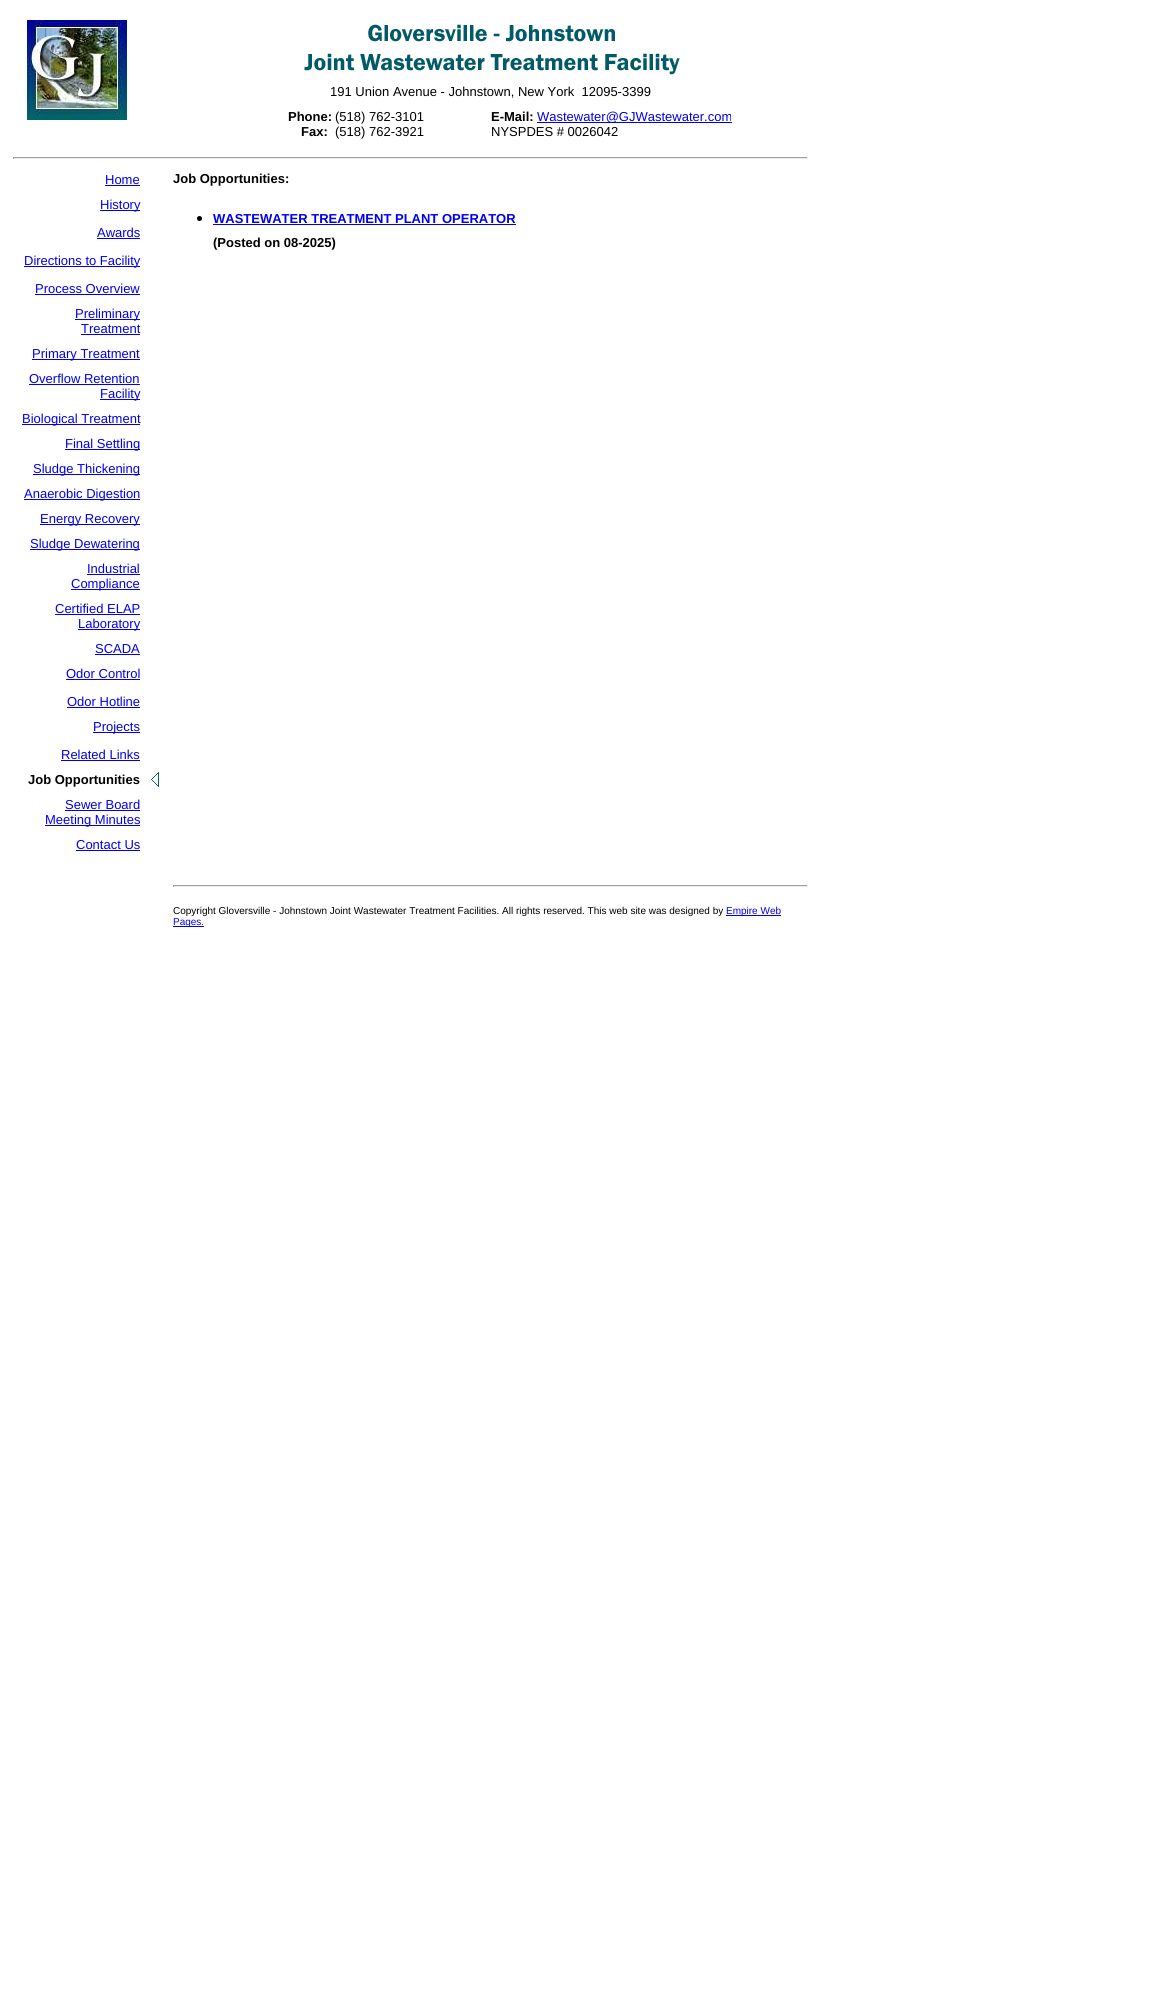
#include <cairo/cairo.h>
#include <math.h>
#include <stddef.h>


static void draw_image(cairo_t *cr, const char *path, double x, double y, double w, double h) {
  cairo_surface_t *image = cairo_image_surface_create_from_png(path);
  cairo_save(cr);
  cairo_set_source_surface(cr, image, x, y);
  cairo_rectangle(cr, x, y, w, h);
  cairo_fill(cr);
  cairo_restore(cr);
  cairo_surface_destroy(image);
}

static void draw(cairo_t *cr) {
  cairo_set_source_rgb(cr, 1, 1, 1);
  cairo_paint(cr);
  draw_image(cr, "images/1.png", 27, 20, 100, 100);
  draw_image(cr, "images/2.png", 304, 24, 376, 51);
  cairo_set_source_rgb(cr, 0, 0, 238 / 255.0);
  cairo_rectangle(cr, 537, 122, 195, 1);
  cairo_fill(cr);
  cairo_set_source_rgb(cr, 159 / 255.0, 159 / 255.0, 159 / 255.0);
  cairo_rectangle(cr, 13, 157, 795, 1);
  cairo_fill(cr);
  cairo_set_source_rgb(cr, 238 / 255.0, 238 / 255.0, 238 / 255.0);
  cairo_rectangle(cr, 807, 157, 1, 2);
  cairo_fill(cr);
  cairo_rectangle(cr, 13, 158, 795, 1);
  cairo_fill(cr);
  cairo_set_source_rgb(cr, 159 / 255.0, 159 / 255.0, 159 / 255.0);
  cairo_rectangle(cr, 13, 157, 1, 2);
  cairo_fill(cr);
  cairo_set_source_rgb(cr, 0, 0, 238 / 255.0);
  cairo_rectangle(cr, 105, 185, 35, 1);
  cairo_fill(cr);
  cairo_rectangle(cr, 100, 210, 40, 1);
  cairo_fill(cr);
  cairo_rectangle(cr, 97, 238, 43, 1);
  cairo_fill(cr);
  cairo_rectangle(cr, 24, 266, 116, 1);
  cairo_fill(cr);
  cairo_rectangle(cr, 35, 294, 105, 1);
  cairo_fill(cr);
  cairo_rectangle(cr, 75, 319, 65, 1);
  cairo_fill(cr);
  cairo_rectangle(cr, 81, 334, 59, 1);
  cairo_fill(cr);
  cairo_rectangle(cr, 32, 359, 108, 1);
  cairo_fill(cr);
  cairo_rectangle(cr, 29, 384, 111, 1);
  cairo_fill(cr);
  cairo_rectangle(cr, 100, 399, 40, 1);
  cairo_fill(cr);
  cairo_rectangle(cr, 22, 424, 118, 1);
  cairo_fill(cr);
  cairo_rectangle(cr, 65, 449, 75, 1);
  cairo_fill(cr);
  cairo_rectangle(cr, 33, 474, 107, 1);
  cairo_fill(cr);
  cairo_rectangle(cr, 24, 499, 116, 1);
  cairo_fill(cr);
  cairo_rectangle(cr, 40, 524, 100, 1);
  cairo_fill(cr);
  cairo_rectangle(cr, 30, 549, 110, 1);
  cairo_fill(cr);
  cairo_rectangle(cr, 87, 574, 53, 1);
  cairo_fill(cr);
  cairo_rectangle(cr, 71, 589, 69, 1);
  cairo_fill(cr);
  cairo_rectangle(cr, 55, 614, 85, 1);
  cairo_fill(cr);
  cairo_rectangle(cr, 78, 629, 62, 1);
  cairo_fill(cr);
  cairo_rectangle(cr, 95, 654, 45, 1);
  cairo_fill(cr);
  cairo_rectangle(cr, 66, 679, 74, 1);
  cairo_fill(cr);
  cairo_rectangle(cr, 67, 707, 73, 1);
  cairo_fill(cr);
  cairo_rectangle(cr, 93, 732, 47, 1);
  cairo_fill(cr);
  cairo_rectangle(cr, 61, 760, 79, 1);
  cairo_fill(cr);
  draw_image(cr, "images/3.png", 151, 772, 8, 15);
  cairo_rectangle(cr, 65, 810, 75, 1);
  cairo_fill(cr);
  cairo_rectangle(cr, 45, 825, 95, 1);
  cairo_fill(cr);
  cairo_rectangle(cr, 76, 850, 64, 1);
  cairo_fill(cr);
  cairo_set_source_rgb(cr, 0, 0, 0);
  cairo_arc(cr, 199.5, 218.5, 2.5, 0, 2 * M_PI);
  cairo_fill(cr);
  cairo_set_source_rgb(cr, 0, 0, 238 / 255.0);
  cairo_rectangle(cr, 213, 224, 303, 1);
  cairo_fill(cr);
  cairo_set_source_rgb(cr, 159 / 255.0, 159 / 255.0, 159 / 255.0);
  cairo_rectangle(cr, 173, 885, 635, 1);
  cairo_fill(cr);
  cairo_set_source_rgb(cr, 238 / 255.0, 238 / 255.0, 238 / 255.0);
  cairo_rectangle(cr, 807, 885, 1, 2);
  cairo_fill(cr);
  cairo_rectangle(cr, 173, 886, 635, 1);
  cairo_fill(cr);
  cairo_set_source_rgb(cr, 159 / 255.0, 159 / 255.0, 159 / 255.0);
  cairo_rectangle(cr, 173, 885, 1, 2);
  cairo_fill(cr);
  cairo_set_source_rgb(cr, 0, 0, 238 / 255.0);
  cairo_rectangle(cr, 726, 915, 55, 1);
  cairo_fill(cr);
  cairo_rectangle(cr, 173, 926, 31, 1);
  cairo_fill(cr);
  cairo_select_font_face(cr, "Liberation Sans", CAIRO_FONT_SLANT_NORMAL, CAIRO_FONT_WEIGHT_NORMAL);
  cairo_set_font_size(cr, 13);
  cairo_set_source_rgb(cr, 0, 0, 0);
  cairo_move_to(cr, 330, 96);
  cairo_show_text(cr, "191 Union Avenue - Johnstown, New York  12095-3399");
  cairo_select_font_face(cr, "Liberation Sans", CAIRO_FONT_SLANT_NORMAL, CAIRO_FONT_WEIGHT_BOLD);
  cairo_move_to(cr, 288, 121);
  cairo_show_text(cr, "Phone:");
  cairo_move_to(cr, 301, 136);
  cairo_show_text(cr, "Fax:");
  cairo_select_font_face(cr, "Liberation Sans", CAIRO_FONT_SLANT_NORMAL, CAIRO_FONT_WEIGHT_NORMAL);
  cairo_move_to(cr, 335, 121);
  cairo_show_text(cr, "(518) 762-3101");
  cairo_move_to(cr, 335, 136);
  cairo_show_text(cr, "(518) 762-3921");
  cairo_select_font_face(cr, "Liberation Sans", CAIRO_FONT_SLANT_NORMAL, CAIRO_FONT_WEIGHT_BOLD);
  cairo_move_to(cr, 491, 121);
  cairo_show_text(cr, "E-Mail:");
  cairo_select_font_face(cr, "Liberation Sans", CAIRO_FONT_SLANT_NORMAL, CAIRO_FONT_WEIGHT_NORMAL);
  cairo_set_source_rgb(cr, 0, 0, 238 / 255.0);
  cairo_move_to(cr, 537, 121);
  cairo_show_text(cr, "Wastewater@GJWastewater.com");
  cairo_set_source_rgb(cr, 0, 0, 0);
  cairo_move_to(cr, 491, 136);
  cairo_show_text(cr, "NYSPDES # 0026042");
  cairo_set_source_rgb(cr, 0, 0, 238 / 255.0);
  cairo_move_to(cr, 105, 184);
  cairo_show_text(cr, "Home");
  cairo_move_to(cr, 100, 209);
  cairo_show_text(cr, "History");
  cairo_move_to(cr, 97, 237);
  cairo_show_text(cr, "Awards");
  cairo_move_to(cr, 24, 265);
  cairo_show_text(cr, "Directions to Facility");
  cairo_move_to(cr, 35, 293);
  cairo_show_text(cr, "Process Overview");
  cairo_move_to(cr, 75, 318);
  cairo_show_text(cr, "Preliminary");
  cairo_move_to(cr, 81, 333);
  cairo_show_text(cr, "Treatment");
  cairo_move_to(cr, 32, 358);
  cairo_show_text(cr, "Primary Treatment");
  cairo_move_to(cr, 29, 383);
  cairo_show_text(cr, "Overflow Retention");
  cairo_move_to(cr, 100, 398);
  cairo_show_text(cr, "Facility");
  cairo_move_to(cr, 22, 423);
  cairo_show_text(cr, "Biological Treatment");
  cairo_move_to(cr, 65, 448);
  cairo_show_text(cr, "Final Settling");
  cairo_move_to(cr, 33, 473);
  cairo_show_text(cr, "Sludge Thickening");
  cairo_move_to(cr, 24, 498);
  cairo_show_text(cr, "Anaerobic Digestion");
  cairo_move_to(cr, 40, 523);
  cairo_show_text(cr, "Energy Recovery");
  cairo_move_to(cr, 30, 548);
  cairo_show_text(cr, "Sludge Dewatering");
  cairo_move_to(cr, 87, 573);
  cairo_show_text(cr, "Industrial");
  cairo_move_to(cr, 71, 588);
  cairo_show_text(cr, "Compliance");
  cairo_move_to(cr, 55, 613);
  cairo_show_text(cr, "Certified ELAP");
  cairo_move_to(cr, 78, 628);
  cairo_show_text(cr, "Laboratory");
  cairo_move_to(cr, 95, 653);
  cairo_show_text(cr, "SCADA");
  cairo_move_to(cr, 66, 678);
  cairo_show_text(cr, "Odor Control");
  cairo_move_to(cr, 67, 706);
  cairo_show_text(cr, "Odor Hotline");
  cairo_move_to(cr, 93, 731);
  cairo_show_text(cr, "Projects");
  cairo_move_to(cr, 61, 759);
  cairo_show_text(cr, "Related Links");
  cairo_select_font_face(cr, "Liberation Sans", CAIRO_FONT_SLANT_NORMAL, CAIRO_FONT_WEIGHT_BOLD);
  cairo_set_source_rgb(cr, 0, 0, 0);
  cairo_move_to(cr, 28, 784);
  cairo_show_text(cr, "Job Opportunities");
  cairo_select_font_face(cr, "Liberation Sans", CAIRO_FONT_SLANT_NORMAL, CAIRO_FONT_WEIGHT_NORMAL);
  cairo_set_source_rgb(cr, 0, 0, 238 / 255.0);
  cairo_move_to(cr, 65, 809);
  cairo_show_text(cr, "Sewer Board");
  cairo_move_to(cr, 45, 824);
  cairo_show_text(cr, "Meeting Minutes");
  cairo_move_to(cr, 76, 849);
  cairo_show_text(cr, "Contact Us");
  cairo_select_font_face(cr, "Liberation Sans", CAIRO_FONT_SLANT_NORMAL, CAIRO_FONT_WEIGHT_BOLD);
  cairo_set_source_rgb(cr, 0, 0, 0);
  cairo_move_to(cr, 173, 183);
  cairo_show_text(cr, "Job Opportunities:");
  cairo_set_source_rgb(cr, 0, 0, 238 / 255.0);
  cairo_move_to(cr, 213, 223);
  cairo_show_text(cr, "WASTEWATER TREATMENT PLANT OPERATOR");
  cairo_set_source_rgb(cr, 0, 0, 0);
  cairo_move_to(cr, 213, 247);
  cairo_show_text(cr, "(Posted on 08-2025)");
  cairo_select_font_face(cr, "Liberation Sans", CAIRO_FONT_SLANT_NORMAL, CAIRO_FONT_WEIGHT_NORMAL);
  cairo_set_font_size(cr, 10);
  cairo_move_to(cr, 173, 914);
  cairo_show_text(cr, "Copyright Gloversville - Johnstown Joint Wastewater Treatment Facilities. All rights reserved. This web site was designed by");
  cairo_set_source_rgb(cr, 0, 0, 238 / 255.0);
  cairo_move_to(cr, 726, 914);
  cairo_show_text(cr, "Empire Web");
  cairo_move_to(cr, 173, 925);
  cairo_show_text(cr, "Pages.");
}

int main(void) {
  cairo_surface_t *surface = cairo_image_surface_create(CAIRO_FORMAT_RGB24, 1163, 2003);
  cairo_t *cr = cairo_create(surface);
  cairo_font_options_t *options = cairo_font_options_create();
  cairo_font_options_set_hint_metrics(options, CAIRO_HINT_METRICS_OFF);
  cairo_font_options_set_hint_style(options, CAIRO_HINT_STYLE_NONE);
  cairo_set_font_options(cr, options);
  cairo_set_miter_limit(cr, 4);
  draw(cr);
  cairo_surface_write_to_png(surface, "out.png");
  cairo_font_options_destroy(options);
  cairo_destroy(cr);
  cairo_surface_destroy(surface);
  return 0;
}
